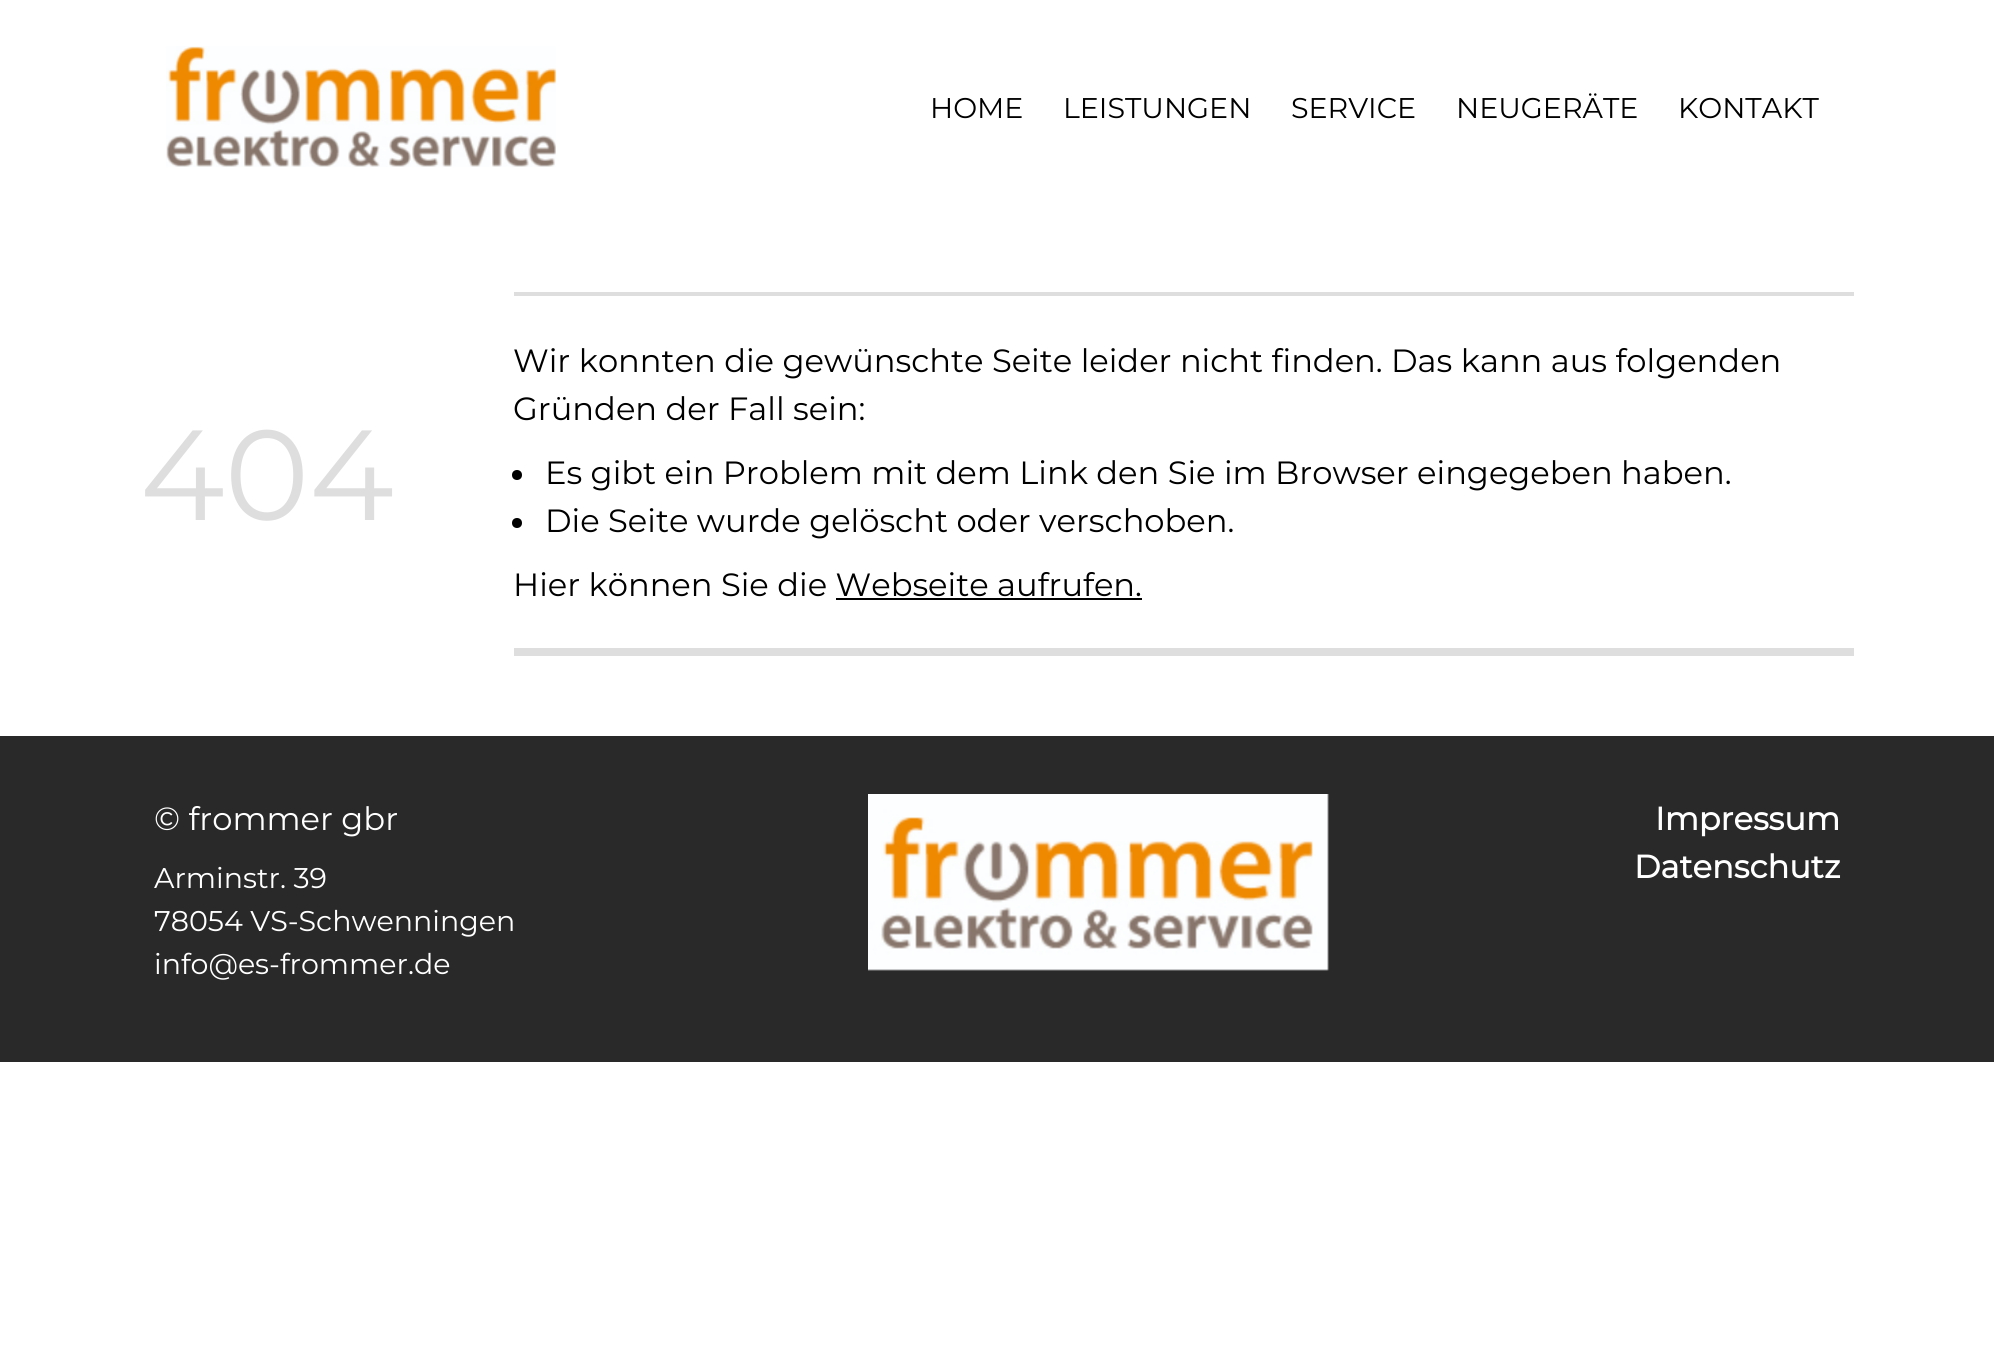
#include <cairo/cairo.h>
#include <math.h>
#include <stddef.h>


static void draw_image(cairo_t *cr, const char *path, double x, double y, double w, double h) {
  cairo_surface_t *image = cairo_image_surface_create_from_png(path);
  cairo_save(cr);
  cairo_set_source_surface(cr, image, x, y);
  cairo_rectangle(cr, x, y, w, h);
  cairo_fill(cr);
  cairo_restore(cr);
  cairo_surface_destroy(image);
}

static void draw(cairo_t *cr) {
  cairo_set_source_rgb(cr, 1, 1, 1);
  cairo_paint(cr);
  draw_image(cr, "images/1.png", 166, 46, 390, 121);
  cairo_set_source_rgb(cr, 222 / 255.0, 222 / 255.0, 222 / 255.0);
  cairo_rectangle(cr, 514, 292, 1340, 4);
  cairo_fill(cr);
  cairo_rectangle(cr, 514, 648, 1340, 8);
  cairo_fill(cr);
  cairo_set_source_rgb(cr, 0, 0, 0);
  cairo_arc(cr, 517, 475, 5, 0, 2 * M_PI);
  cairo_fill(cr);
  cairo_arc(cr, 517, 523, 5, 0, 2 * M_PI);
  cairo_fill(cr);
  cairo_rectangle(cr, 836, 598, 306, 2);
  cairo_fill(cr);
  cairo_set_source_rgb(cr, 41 / 255.0, 41 / 255.0, 41 / 255.0);
  cairo_rectangle(cr, 0, 736, 1994, 326);
  cairo_fill(cr);
  draw_image(cr, "images/2.png", 868, 794, 461, 177);
  cairo_select_font_face(cr, "Montserrat Thin", CAIRO_FONT_SLANT_NORMAL, CAIRO_FONT_WEIGHT_NORMAL);
  cairo_set_font_size(cr, 28.5);
  cairo_set_source_rgb(cr, 0, 0, 0);
  cairo_move_to(cr, 930, 118);
  cairo_show_text(cr, "HOME");
  cairo_move_to(cr, 1063, 118);
  cairo_show_text(cr, "LEISTUNGEN");
  cairo_move_to(cr, 1291, 118);
  cairo_show_text(cr, "SERVICE");
  cairo_move_to(cr, 1456, 118);
  cairo_show_text(cr, "NEUGERÄTE");
  cairo_move_to(cr, 1678, 118);
  cairo_show_text(cr, "KONTAKT");
  cairo_set_font_size(cr, 128);
  cairo_set_source_rgb(cr, 222 / 255.0, 222 / 255.0, 222 / 255.0);
  cairo_move_to(cr, 140, 520);
  cairo_show_text(cr, "404");
  cairo_set_font_size(cr, 32.15);
  cairo_set_source_rgb(cr, 0, 0, 0);
  cairo_move_to(cr, 513, 372);
  cairo_show_text(cr, "Wir konnten die gewünschte Seite leider nicht finden. Das kann aus folgenden");
  cairo_move_to(cr, 513, 420);
  cairo_show_text(cr, "Gründen der Fall sein:");
  cairo_move_to(cr, 545, 484);
  cairo_show_text(cr, "Es gibt ein Problem mit dem Link den Sie im Browser eingegeben haben.");
  cairo_move_to(cr, 545, 532);
  cairo_show_text(cr, "Die Seite wurde gelöscht oder verschoben.");
  cairo_move_to(cr, 513, 596);
  cairo_show_text(cr, "Hier können Sie die Webseite aufrufen.");
  cairo_set_source_rgb(cr, 1, 1, 1);
  cairo_move_to(cr, 154, 830);
  cairo_show_text(cr, "© frommer gbr");
  cairo_set_font_size(cr, 28.5);
  cairo_move_to(cr, 154, 888);
  cairo_show_text(cr, "Arminstr. 39");
  cairo_move_to(cr, 154, 931);
  cairo_show_text(cr, "78054 VS-Schwenningen");
  cairo_move_to(cr, 154, 974);
  cairo_show_text(cr, "info@es-frommer.de");
  cairo_select_font_face(cr, "Montserrat", CAIRO_FONT_SLANT_NORMAL, CAIRO_FONT_WEIGHT_BOLD);
  cairo_set_font_size(cr, 32.15);
  cairo_move_to(cr, 1655, 830);
  cairo_show_text(cr, "Impressum");
  cairo_move_to(cr, 1634, 878);
  cairo_show_text(cr, "Datenschutz");
}

int main(void) {
  cairo_surface_t *surface = cairo_image_surface_create(CAIRO_FORMAT_RGB24, 1994, 1351);
  cairo_t *cr = cairo_create(surface);
  cairo_font_options_t *options = cairo_font_options_create();
  cairo_font_options_set_hint_metrics(options, CAIRO_HINT_METRICS_OFF);
  cairo_font_options_set_hint_style(options, CAIRO_HINT_STYLE_NONE);
  cairo_set_font_options(cr, options);
  cairo_set_miter_limit(cr, 4);
  draw(cr);
  cairo_surface_write_to_png(surface, "out.png");
  cairo_font_options_destroy(options);
  cairo_destroy(cr);
  cairo_surface_destroy(surface);
  return 0;
}
